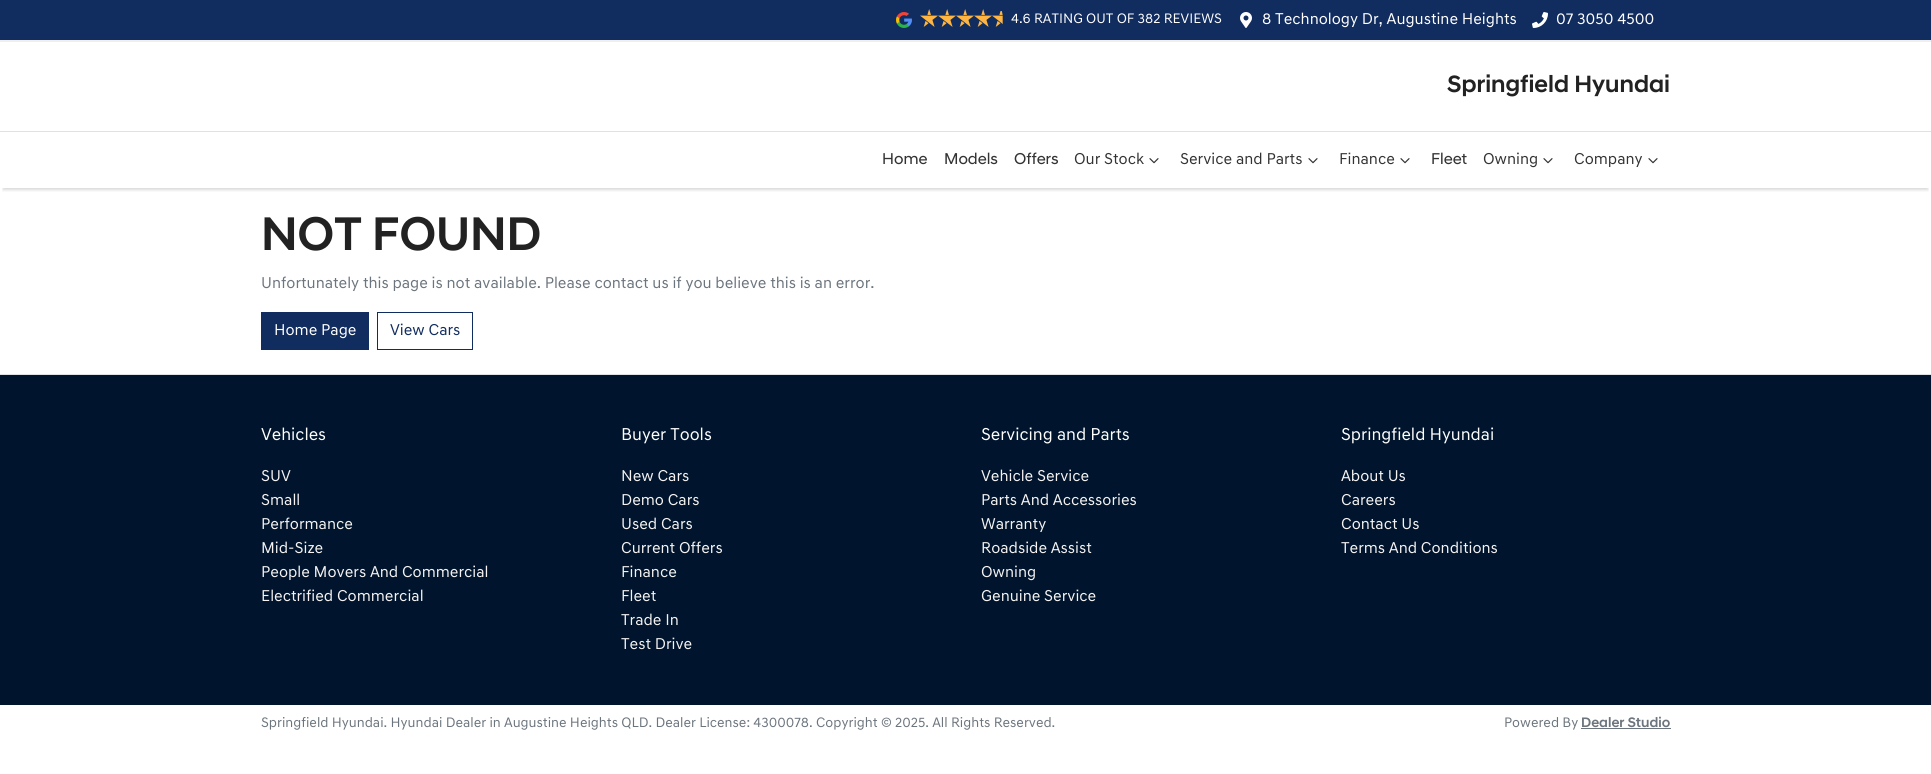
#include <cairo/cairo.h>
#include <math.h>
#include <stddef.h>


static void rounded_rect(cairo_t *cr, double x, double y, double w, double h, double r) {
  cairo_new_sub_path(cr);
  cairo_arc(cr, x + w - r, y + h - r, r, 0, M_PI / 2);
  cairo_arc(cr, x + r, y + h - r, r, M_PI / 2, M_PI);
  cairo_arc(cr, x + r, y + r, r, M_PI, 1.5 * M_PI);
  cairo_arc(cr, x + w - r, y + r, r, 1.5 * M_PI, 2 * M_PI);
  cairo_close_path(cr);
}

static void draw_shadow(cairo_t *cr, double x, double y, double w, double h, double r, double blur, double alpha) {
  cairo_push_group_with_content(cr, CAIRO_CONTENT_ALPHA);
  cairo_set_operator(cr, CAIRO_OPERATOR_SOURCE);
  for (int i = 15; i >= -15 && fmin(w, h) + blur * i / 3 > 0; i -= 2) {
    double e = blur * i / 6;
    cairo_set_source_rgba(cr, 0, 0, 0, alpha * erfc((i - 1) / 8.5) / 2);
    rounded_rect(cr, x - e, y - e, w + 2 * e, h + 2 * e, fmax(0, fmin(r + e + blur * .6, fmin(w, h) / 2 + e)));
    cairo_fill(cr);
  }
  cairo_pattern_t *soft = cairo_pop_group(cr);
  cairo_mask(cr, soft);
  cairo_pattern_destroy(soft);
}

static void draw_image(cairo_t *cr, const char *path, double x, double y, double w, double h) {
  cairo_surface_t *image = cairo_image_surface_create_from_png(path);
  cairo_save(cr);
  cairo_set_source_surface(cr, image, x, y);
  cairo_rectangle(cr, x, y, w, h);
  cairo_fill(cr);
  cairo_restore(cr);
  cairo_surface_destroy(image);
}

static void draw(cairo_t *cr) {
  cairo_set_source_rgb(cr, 1, 1, 1);
  cairo_paint(cr);
  cairo_set_source_rgb(cr, 17 / 255.0, 44 / 255.0, 95 / 255.0);
  cairo_rectangle(cr, 0, 0, 1931, 40);
  cairo_fill(cr);
  cairo_set_source_rgb(cr, 239 / 255.0, 239 / 255.0, 239 / 255.0);
  cairo_rectangle(cr, 0, 40, 1931, 2);
  cairo_fill(cr);
  draw_image(cr, "images/1.png", 896, 12, 16, 16);
  draw_image(cr, "images/2.png", 920, 9, 18, 18);
  draw_image(cr, "images/2.png", 938, 9, 18, 18);
  draw_image(cr, "images/2.png", 956, 9, 18, 18);
  draw_image(cr, "images/2.png", 974, 9, 18, 18);
  draw_image(cr, "images/3.png", 992, 11, 11, 16);
  draw_image(cr, "images/4.png", 1240, 12, 12, 16);
  draw_image(cr, "images/5.png", 1532, 12, 16, 16);
  cairo_save(cr);
  cairo_rectangle(cr, 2, 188, 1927, 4);
  cairo_clip(cr);
  cairo_set_source_rgb(cr, 0, 0, 0);
  draw_shadow(cr, 3, 139, 1925, 51, 0, 1.5, 0.15);
  cairo_restore(cr);
  cairo_set_source_rgb(cr, 222 / 255.0, 226 / 255.0, 230 / 255.0);
  cairo_rectangle(cr, 0, 131, 1931, 1);
  cairo_fill(cr);
  draw_image(cr, "images/6.png", 1149, 158, 10, 6);
  draw_image(cr, "images/6.png", 1308, 158, 10, 6);
  draw_image(cr, "images/6.png", 1400, 158, 10, 6);
  draw_image(cr, "images/6.png", 1543, 158, 10, 6);
  draw_image(cr, "images/6.png", 1648, 158, 10, 6);
  cairo_set_source_rgb(cr, 17 / 255.0, 44 / 255.0, 95 / 255.0);
  cairo_rectangle(cr, 261, 312, 108, 38);
  cairo_fill(cr);
  cairo_rectangle(cr, 377.5, 312.5, 95, 37);
  cairo_set_line_width(cr, 1);
  cairo_stroke(cr);
  cairo_set_source_rgb(cr, 0, 21 / 255.0, 45 / 255.0);
  cairo_rectangle(cr, 0, 375, 1931, 330);
  cairo_fill(cr);
  cairo_set_source_rgb(cr, 222 / 255.0, 226 / 255.0, 230 / 255.0);
  cairo_rectangle(cr, 0, 374, 1931, 1);
  cairo_fill(cr);
  cairo_set_source_rgb(cr, 108 / 255.0, 117 / 255.0, 125 / 255.0);
  cairo_rectangle(cr, 1581, 728, 90, 1);
  cairo_fill(cr);
  cairo_select_font_face(cr, "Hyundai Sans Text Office", CAIRO_FONT_SLANT_NORMAL, CAIRO_FONT_WEIGHT_NORMAL);
  cairo_set_font_size(cr, 14);
  cairo_set_source_rgb(cr, 1, 1, 1);
  cairo_move_to(cr, 1011, 23);
  cairo_show_text(cr, "4.6 RATING OUT OF 382 REVIEWS");
  cairo_set_font_size(cr, 16);
  cairo_move_to(cr, 1262, 24);
  cairo_show_text(cr, "8 Technology Dr, Augustine Heights");
  cairo_move_to(cr, 1556, 24);
  cairo_show_text(cr, "07 3050 4500");
  cairo_select_font_face(cr, "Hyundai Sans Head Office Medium", CAIRO_FONT_SLANT_NORMAL, CAIRO_FONT_WEIGHT_NORMAL);
  cairo_set_font_size(cr, 24);
  cairo_set_source_rgb(cr, 34 / 255.0, 34 / 255.0, 34 / 255.0);
  cairo_move_to(cr, 1447, 92);
  cairo_show_text(cr, "Springfield Hyundai");
  cairo_select_font_face(cr, "Hyundai Sans Head Office", CAIRO_FONT_SLANT_NORMAL, CAIRO_FONT_WEIGHT_NORMAL);
  cairo_set_font_size(cr, 16);
  cairo_set_source_rgb(cr, 51 / 255.0, 51 / 255.0, 51 / 255.0);
  cairo_move_to(cr, 882, 164);
  cairo_show_text(cr, "Home");
  cairo_move_to(cr, 944, 164);
  cairo_show_text(cr, "Models");
  cairo_move_to(cr, 1014, 164);
  cairo_show_text(cr, "Offers");
  cairo_select_font_face(cr, "Hyundai Sans Text Office", CAIRO_FONT_SLANT_NORMAL, CAIRO_FONT_WEIGHT_NORMAL);
  cairo_move_to(cr, 1074, 164);
  cairo_show_text(cr, "Our Stock");
  cairo_move_to(cr, 1180, 164);
  cairo_show_text(cr, "Service and Parts");
  cairo_move_to(cr, 1339, 164);
  cairo_show_text(cr, "Finance");
  cairo_select_font_face(cr, "Hyundai Sans Head Office", CAIRO_FONT_SLANT_NORMAL, CAIRO_FONT_WEIGHT_NORMAL);
  cairo_move_to(cr, 1431, 164);
  cairo_show_text(cr, "Fleet");
  cairo_select_font_face(cr, "Hyundai Sans Text Office", CAIRO_FONT_SLANT_NORMAL, CAIRO_FONT_WEIGHT_NORMAL);
  cairo_move_to(cr, 1483, 164);
  cairo_show_text(cr, "Owning");
  cairo_move_to(cr, 1574, 164);
  cairo_show_text(cr, "Company");
  cairo_select_font_face(cr, "Hyundai Sans Head Office Medium", CAIRO_FONT_SLANT_NORMAL, CAIRO_FONT_WEIGHT_NORMAL);
  cairo_set_font_size(cr, 48);
  cairo_set_source_rgb(cr, 34 / 255.0, 34 / 255.0, 34 / 255.0);
  cairo_move_to(cr, 261, 250);
  cairo_show_text(cr, "NOT FOUND");
  cairo_select_font_face(cr, "Hyundai Sans Text Office", CAIRO_FONT_SLANT_NORMAL, CAIRO_FONT_WEIGHT_NORMAL);
  cairo_set_font_size(cr, 16);
  cairo_set_source_rgb(cr, 108 / 255.0, 117 / 255.0, 125 / 255.0);
  cairo_move_to(cr, 261, 288);
  cairo_show_text(cr, "Unfortunately this page is not available. Please contact us if you believe this is an error.");
  cairo_set_source_rgb(cr, 1, 1, 1);
  cairo_move_to(cr, 274, 335);
  cairo_show_text(cr, "Home Page");
  cairo_set_source_rgb(cr, 17 / 255.0, 44 / 255.0, 95 / 255.0);
  cairo_move_to(cr, 390, 335);
  cairo_show_text(cr, "View Cars");
  cairo_set_font_size(cr, 17.5);
  cairo_set_source_rgb(cr, 1, 1, 1);
  cairo_move_to(cr, 261, 440);
  cairo_show_text(cr, "Vehicles");
  cairo_set_font_size(cr, 16);
  cairo_set_source_rgb(cr, 246 / 255.0, 243 / 255.0, 242 / 255.0);
  cairo_move_to(cr, 261, 481);
  cairo_show_text(cr, "SUV");
  cairo_move_to(cr, 261, 505);
  cairo_show_text(cr, "Small");
  cairo_move_to(cr, 261, 529);
  cairo_show_text(cr, "Performance");
  cairo_move_to(cr, 261, 553);
  cairo_show_text(cr, "Mid-Size");
  cairo_move_to(cr, 261, 577);
  cairo_show_text(cr, "People Movers And Commercial");
  cairo_move_to(cr, 261, 601);
  cairo_show_text(cr, "Electrified Commercial");
  cairo_set_font_size(cr, 17.5);
  cairo_set_source_rgb(cr, 1, 1, 1);
  cairo_move_to(cr, 621, 440);
  cairo_show_text(cr, "Buyer Tools");
  cairo_set_font_size(cr, 16);
  cairo_set_source_rgb(cr, 246 / 255.0, 243 / 255.0, 242 / 255.0);
  cairo_move_to(cr, 621, 481);
  cairo_show_text(cr, "New Cars");
  cairo_move_to(cr, 621, 505);
  cairo_show_text(cr, "Demo Cars");
  cairo_move_to(cr, 621, 529);
  cairo_show_text(cr, "Used Cars");
  cairo_move_to(cr, 621, 553);
  cairo_show_text(cr, "Current Offers");
  cairo_move_to(cr, 621, 577);
  cairo_show_text(cr, "Finance");
  cairo_move_to(cr, 621, 601);
  cairo_show_text(cr, "Fleet");
  cairo_move_to(cr, 621, 625);
  cairo_show_text(cr, "Trade In");
  cairo_move_to(cr, 621, 649);
  cairo_show_text(cr, "Test Drive");
  cairo_set_font_size(cr, 17.5);
  cairo_set_source_rgb(cr, 1, 1, 1);
  cairo_move_to(cr, 981, 440);
  cairo_show_text(cr, "Servicing and Parts");
  cairo_set_font_size(cr, 16);
  cairo_set_source_rgb(cr, 246 / 255.0, 243 / 255.0, 242 / 255.0);
  cairo_move_to(cr, 981, 481);
  cairo_show_text(cr, "Vehicle Service");
  cairo_move_to(cr, 981, 505);
  cairo_show_text(cr, "Parts And Accessories");
  cairo_move_to(cr, 981, 529);
  cairo_show_text(cr, "Warranty");
  cairo_move_to(cr, 981, 553);
  cairo_show_text(cr, "Roadside Assist");
  cairo_move_to(cr, 981, 577);
  cairo_show_text(cr, "Owning");
  cairo_move_to(cr, 981, 601);
  cairo_show_text(cr, "Genuine Service");
  cairo_set_font_size(cr, 17.5);
  cairo_set_source_rgb(cr, 1, 1, 1);
  cairo_move_to(cr, 1341, 440);
  cairo_show_text(cr, "Springfield Hyundai");
  cairo_set_font_size(cr, 16);
  cairo_set_source_rgb(cr, 246 / 255.0, 243 / 255.0, 242 / 255.0);
  cairo_move_to(cr, 1341, 481);
  cairo_show_text(cr, "About Us");
  cairo_move_to(cr, 1341, 505);
  cairo_show_text(cr, "Careers");
  cairo_move_to(cr, 1341, 529);
  cairo_show_text(cr, "Contact Us");
  cairo_move_to(cr, 1341, 553);
  cairo_show_text(cr, "Terms And Conditions");
  cairo_set_font_size(cr, 14);
  cairo_set_source_rgb(cr, 108 / 255.0, 117 / 255.0, 125 / 255.0);
  cairo_move_to(cr, 261, 727);
  cairo_show_text(cr, "Springfield Hyundai. Hyundai Dealer in Augustine Heights QLD. Dealer License: 4300078. Copyright © 2025. All Rights Reserved.");
  cairo_move_to(cr, 1504, 727);
  cairo_show_text(cr, "Powered By");
  cairo_select_font_face(cr, "Hyundai Sans Head Office Medium", CAIRO_FONT_SLANT_NORMAL, CAIRO_FONT_WEIGHT_NORMAL);
  cairo_move_to(cr, 1581, 727);
  cairo_show_text(cr, "Dealer Studio");
}

int main(void) {
  cairo_surface_t *surface = cairo_image_surface_create(CAIRO_FORMAT_RGB24, 1931, 774);
  cairo_t *cr = cairo_create(surface);
  cairo_font_options_t *options = cairo_font_options_create();
  cairo_font_options_set_hint_metrics(options, CAIRO_HINT_METRICS_OFF);
  cairo_font_options_set_hint_style(options, CAIRO_HINT_STYLE_NONE);
  cairo_set_font_options(cr, options);
  cairo_set_miter_limit(cr, 4);
  draw(cr);
  cairo_surface_write_to_png(surface, "out.png");
  cairo_font_options_destroy(options);
  cairo_destroy(cr);
  cairo_surface_destroy(surface);
  return 0;
}
